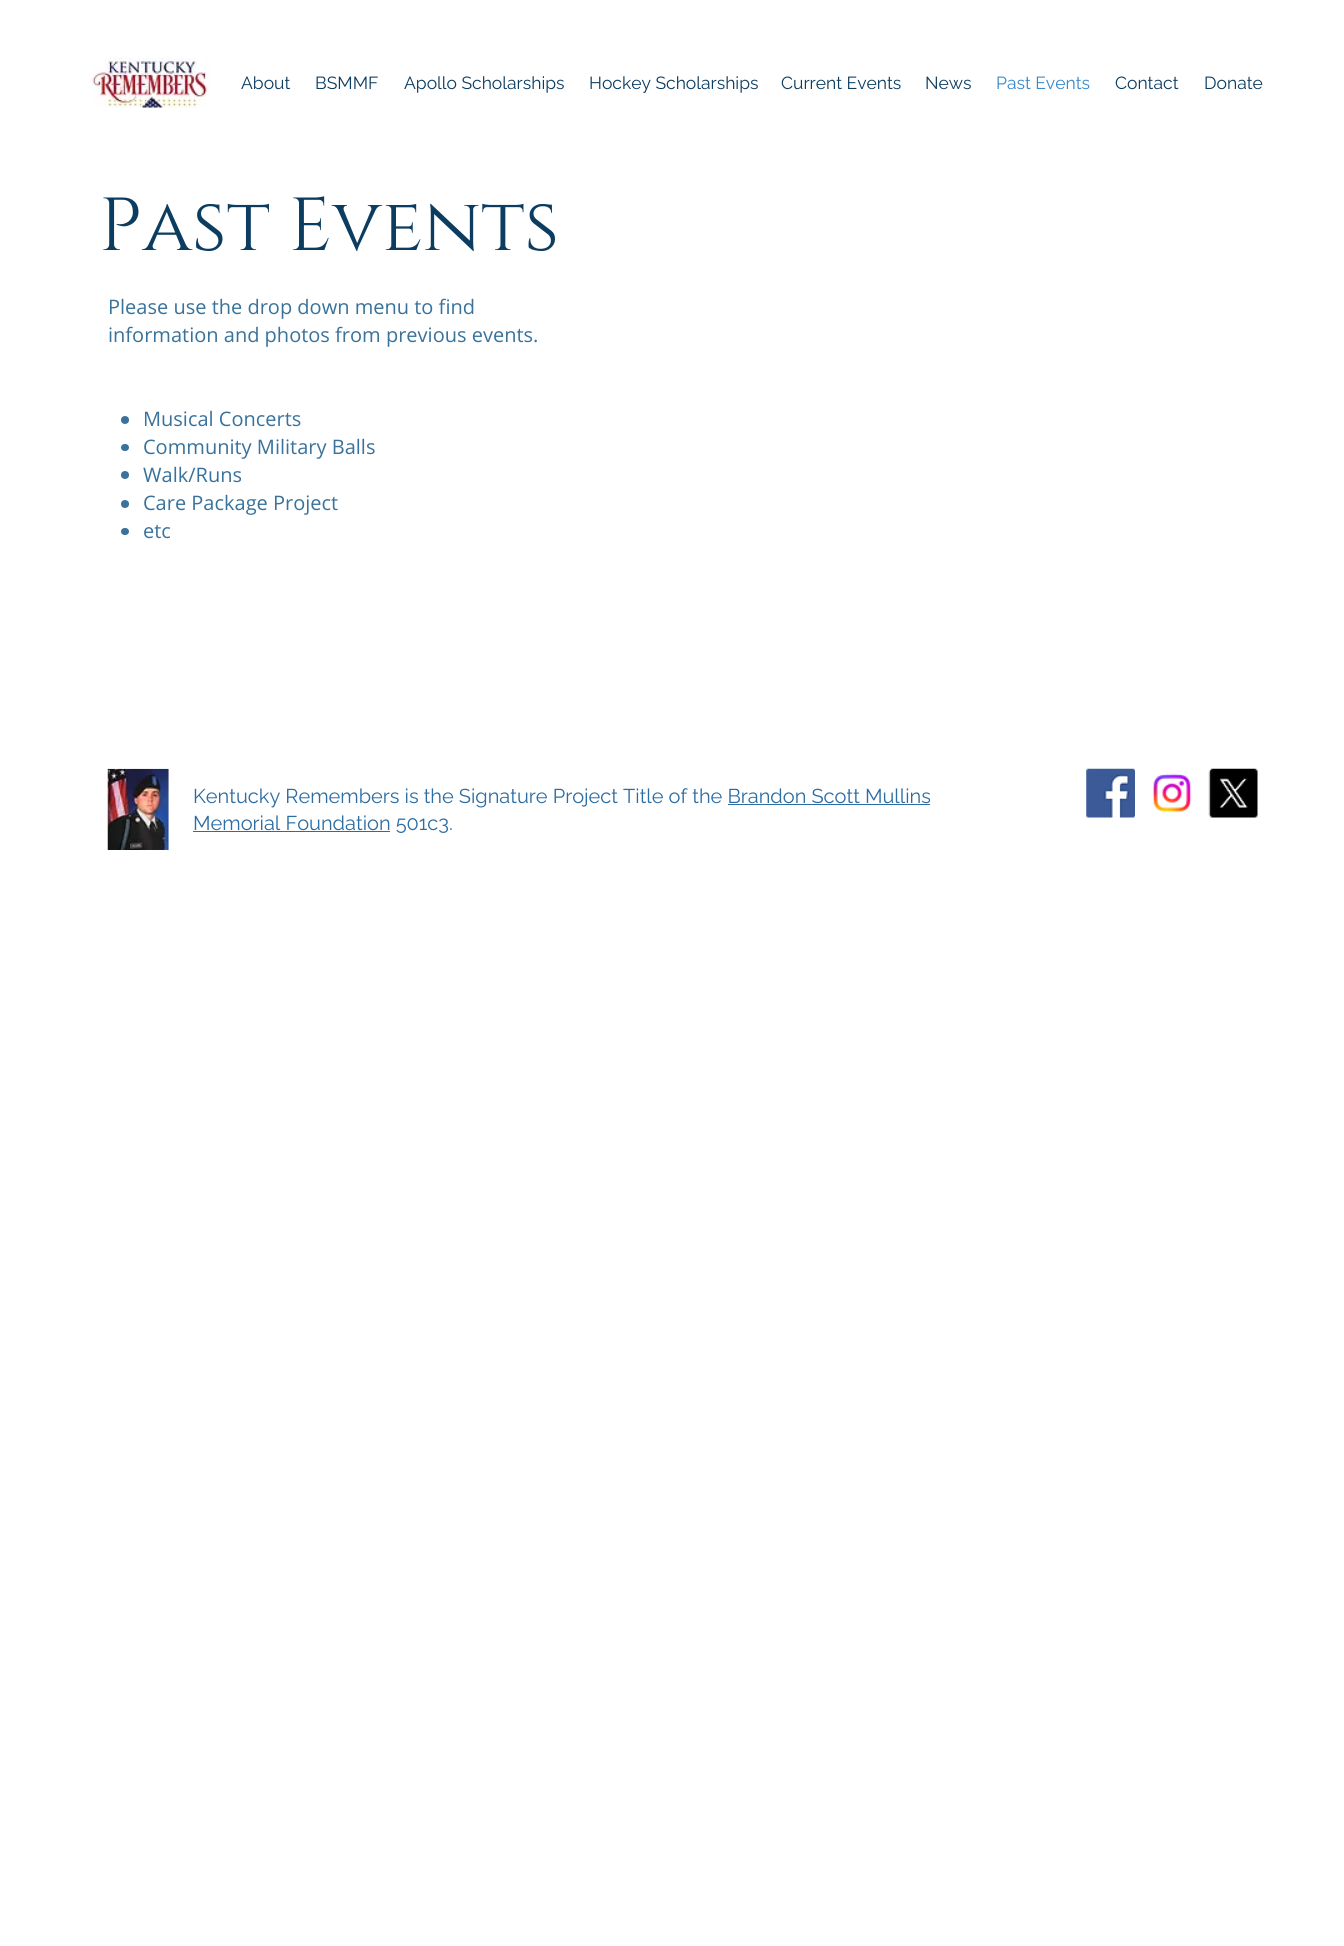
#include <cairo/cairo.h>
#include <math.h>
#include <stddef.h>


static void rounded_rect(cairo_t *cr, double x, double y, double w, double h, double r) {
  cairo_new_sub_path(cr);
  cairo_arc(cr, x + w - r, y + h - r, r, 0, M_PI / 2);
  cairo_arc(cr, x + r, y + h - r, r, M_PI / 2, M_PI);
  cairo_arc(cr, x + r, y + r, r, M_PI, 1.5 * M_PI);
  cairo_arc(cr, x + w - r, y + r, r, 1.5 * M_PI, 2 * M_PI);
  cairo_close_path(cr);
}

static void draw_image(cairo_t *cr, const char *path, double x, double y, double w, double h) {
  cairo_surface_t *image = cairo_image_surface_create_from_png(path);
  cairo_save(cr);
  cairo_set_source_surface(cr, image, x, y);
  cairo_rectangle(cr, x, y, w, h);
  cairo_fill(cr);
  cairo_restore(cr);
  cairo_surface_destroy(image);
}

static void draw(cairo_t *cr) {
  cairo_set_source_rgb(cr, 1, 1, 1);
  cairo_paint(cr);
  draw_image(cr, "images/1.png", 90, 57, 120, 51);
  cairo_set_source_rgb(cr, 57 / 255.0, 114 / 255.0, 155 / 255.0);
  cairo_arc(cr, 125, 420, 4, 0, 2 * M_PI);
  cairo_fill(cr);
  rounded_rect(cr, 121, 444, 8, 7, 3.5);
  cairo_fill(cr);
  cairo_arc(cr, 125, 475, 4, 0, 2 * M_PI);
  cairo_fill(cr);
  cairo_arc(cr, 125, 504, 4, 0, 2 * M_PI);
  cairo_fill(cr);
  rounded_rect(cr, 121, 528, 8, 7, 3.5);
  cairo_fill(cr);
  draw_image(cr, "images/2.png", 107, 768, 62, 82);
  cairo_set_source_rgb(cr, 43 / 255.0, 108 / 255.0, 163 / 255.0);
  cairo_rectangle(cr, 728, 804, 202, 1);
  cairo_fill(cr);
  cairo_rectangle(cr, 193, 831, 197, 1);
  cairo_fill(cr);
  draw_image(cr, "images/3.png", 1086, 768, 49, 50);
  draw_image(cr, "images/4.png", 1152, 773, 40, 40);
  draw_image(cr, "images/5.png", 1208, 768, 50, 50);
  cairo_select_font_face(cr, "Raleway", CAIRO_FONT_SLANT_NORMAL, CAIRO_FONT_WEIGHT_NORMAL);
  cairo_set_font_size(cr, 17.5);
  cairo_set_source_rgb(cr, 12 / 255.0, 60 / 255.0, 96 / 255.0);
  cairo_move_to(cr, 241, 89);
  cairo_show_text(cr, "About");
  cairo_move_to(cr, 315, 89);
  cairo_show_text(cr, "BSMMF");
  cairo_move_to(cr, 404, 89);
  cairo_show_text(cr, "Apollo Scholarships");
  cairo_move_to(cr, 589, 89);
  cairo_show_text(cr, "Hockey Scholarships");
  cairo_move_to(cr, 781, 89);
  cairo_show_text(cr, "Current Events");
  cairo_move_to(cr, 925, 89);
  cairo_show_text(cr, "News");
  cairo_set_source_rgb(cr, 53 / 255.0, 136 / 255.0, 204 / 255.0);
  cairo_move_to(cr, 996, 89);
  cairo_show_text(cr, "Past Events");
  cairo_set_source_rgb(cr, 12 / 255.0, 60 / 255.0, 96 / 255.0);
  cairo_move_to(cr, 1115, 89);
  cairo_show_text(cr, "Contact");
  cairo_move_to(cr, 1204, 89);
  cairo_show_text(cr, "Donate");
  cairo_select_font_face(cr, "Cinzel", CAIRO_FONT_SLANT_NORMAL, CAIRO_FONT_WEIGHT_NORMAL);
  cairo_set_font_size(cr, 75);
  cairo_move_to(cr, 99, 250);
  cairo_show_text(cr, "Past Events");
  cairo_select_font_face(cr, "Open Sans", CAIRO_FONT_SLANT_NORMAL, CAIRO_FONT_WEIGHT_NORMAL);
  cairo_set_font_size(cr, 20);
  cairo_set_source_rgb(cr, 57 / 255.0, 114 / 255.0, 155 / 255.0);
  cairo_move_to(cr, 108, 314);
  cairo_show_text(cr, "Please use the drop down menu to find");
  cairo_move_to(cr, 108, 342);
  cairo_show_text(cr, "information and photos from previous events.");
  cairo_move_to(cr, 143, 426);
  cairo_show_text(cr, "Musical Concerts");
  cairo_move_to(cr, 143, 454);
  cairo_show_text(cr, "Community Military Balls");
  cairo_move_to(cr, 143, 482);
  cairo_show_text(cr, "Walk/Runs");
  cairo_move_to(cr, 143, 510);
  cairo_show_text(cr, "Care Package Project");
  cairo_move_to(cr, 143, 538);
  cairo_show_text(cr, "etc");
  cairo_select_font_face(cr, "Raleway", CAIRO_FONT_SLANT_NORMAL, CAIRO_FONT_WEIGHT_NORMAL);
  cairo_set_source_rgb(cr, 43 / 255.0, 108 / 255.0, 163 / 255.0);
  cairo_move_to(cr, 193, 803);
  cairo_show_text(cr, "Kentucky Remembers is the Signature Project Title of the Brandon Scott Mullins");
  cairo_move_to(cr, 193, 830);
  cairo_show_text(cr, "Memorial Foundation 501c3.");
}

int main(void) {
  cairo_surface_t *surface = cairo_image_surface_create(CAIRO_FORMAT_RGB24, 1344, 1946);
  cairo_t *cr = cairo_create(surface);
  cairo_font_options_t *options = cairo_font_options_create();
  cairo_font_options_set_hint_metrics(options, CAIRO_HINT_METRICS_OFF);
  cairo_font_options_set_hint_style(options, CAIRO_HINT_STYLE_NONE);
  cairo_set_font_options(cr, options);
  cairo_set_miter_limit(cr, 4);
  draw(cr);
  cairo_surface_write_to_png(surface, "out.png");
  cairo_font_options_destroy(options);
  cairo_destroy(cr);
  cairo_surface_destroy(surface);
  return 0;
}
